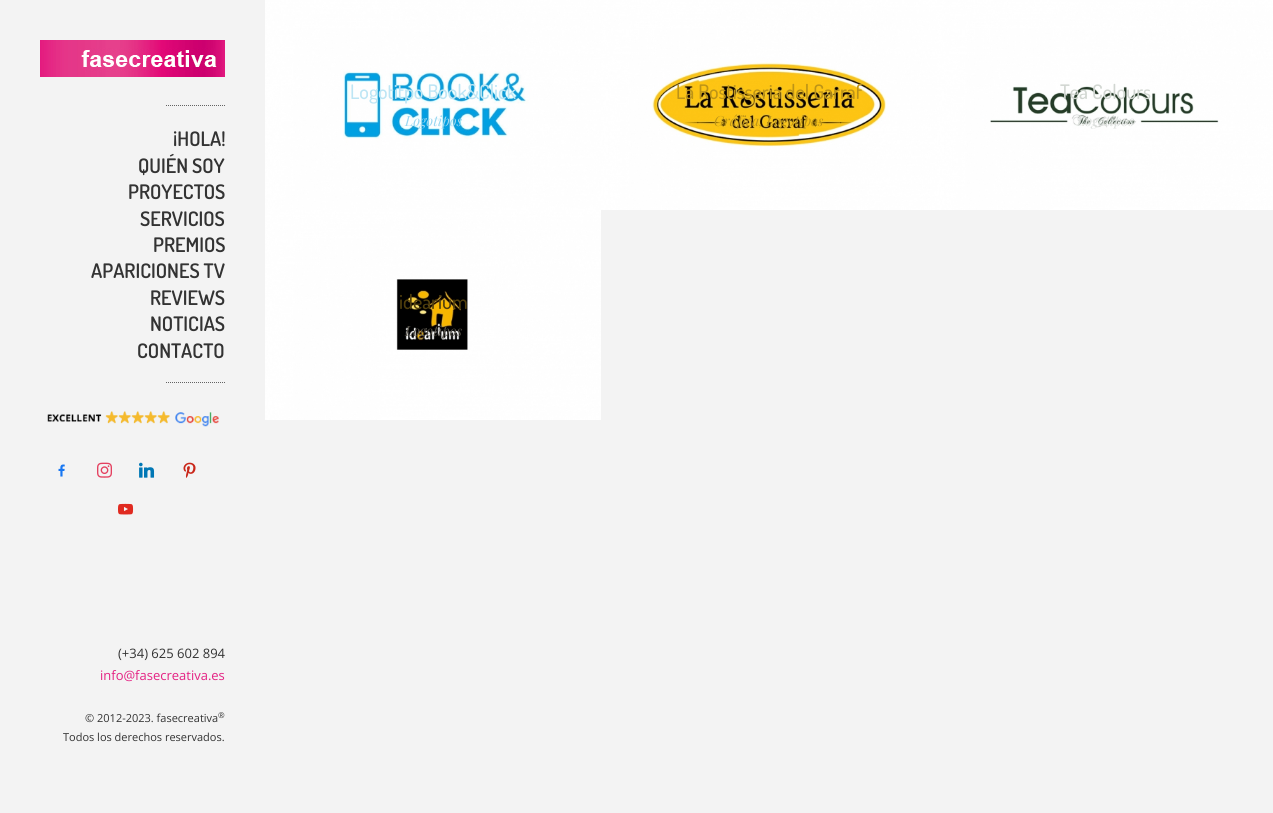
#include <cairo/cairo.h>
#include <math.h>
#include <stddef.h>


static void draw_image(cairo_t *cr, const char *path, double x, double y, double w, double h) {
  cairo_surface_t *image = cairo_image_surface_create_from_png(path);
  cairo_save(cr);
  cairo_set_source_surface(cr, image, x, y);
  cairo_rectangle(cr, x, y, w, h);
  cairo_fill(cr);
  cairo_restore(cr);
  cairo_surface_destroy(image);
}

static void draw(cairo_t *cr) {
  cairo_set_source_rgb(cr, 243 / 255.0, 243 / 255.0, 243 / 255.0);
  cairo_paint(cr);
  draw_image(cr, "images/1.png", 40, 40, 185, 37);
  cairo_new_path(cr);
  cairo_move_to(cr, 166, 105.5);
  cairo_line_to(cr, 225, 105.5);
  cairo_set_source_rgb(cr, 99 / 255.0, 99 / 255.0, 99 / 255.0);
  cairo_set_line_width(cr, 1);
  cairo_set_dash(cr, (double[]){1, 1}, 2, 0);
  cairo_stroke(cr);
  cairo_new_path(cr);
  cairo_move_to(cr, 166, 382.5);
  cairo_line_to(cr, 225, 382.5);
  cairo_stroke(cr);
  draw_image(cr, "images/2.png", 47, 411, 172, 16);
  draw_image(cr, "images/3.png", 58, 464, 7, 13);
  draw_image(cr, "images/4.png", 97, 462, 15, 16);
  draw_image(cr, "images/5.png", 139, 462, 16, 16);
  draw_image(cr, "images/6.png", 183, 462, 13, 16);
  draw_image(cr, "images/7.png", 118, 503, 16, 12);
  draw_image(cr, "images/8.png", 265, 0, 336, 210);
  draw_image(cr, "images/9.png", 601, 0, 336, 210);
  draw_image(cr, "images/10.png", 937, 0, 336, 210);
  draw_image(cr, "images/11.png", 265, 210, 336, 210);
  cairo_select_font_face(cr, "Dosis SemiBold", CAIRO_FONT_SLANT_NORMAL, CAIRO_FONT_WEIGHT_NORMAL);
  cairo_set_font_size(cr, 20);
  cairo_set_source_rgb(cr, 51 / 255.0, 51 / 255.0, 51 / 255.0);
  cairo_move_to(cr, 173, 146);
  cairo_show_text(cr, "¡HOLA!");
  cairo_move_to(cr, 138, 173);
  cairo_show_text(cr, "QUIÉN SOY");
  cairo_move_to(cr, 128, 199);
  cairo_show_text(cr, "PROYECTOS");
  cairo_move_to(cr, 140, 226);
  cairo_show_text(cr, "SERVICIOS");
  cairo_move_to(cr, 153, 252);
  cairo_show_text(cr, "PREMIOS");
  cairo_move_to(cr, 91, 278);
  cairo_show_text(cr, "APARICIONES TV");
  cairo_move_to(cr, 150, 305);
  cairo_show_text(cr, "REVIEWS");
  cairo_move_to(cr, 150, 331);
  cairo_show_text(cr, "NOTICIAS");
  cairo_move_to(cr, 137, 358);
  cairo_show_text(cr, "CONTACTO");
  cairo_select_font_face(cr, "Open Sans", CAIRO_FONT_SLANT_NORMAL, CAIRO_FONT_WEIGHT_NORMAL);
  cairo_set_font_size(cr, 13);
  cairo_move_to(cr, 118, 658);
  cairo_show_text(cr, "(+34) 625 602 894");
  cairo_set_source_rgb(cr, 228 / 255.0, 34 / 255.0, 131 / 255.0);
  cairo_move_to(cr, 100, 680);
  cairo_show_text(cr, "info@fasecreativa.es");
  cairo_set_font_size(cr, 11);
  cairo_set_source_rgb(cr, 51 / 255.0, 51 / 255.0, 51 / 255.0);
  cairo_move_to(cr, 85, 722);
  cairo_show_text(cr, "© 2012-2023. fasecreativa");
  cairo_set_font_size(cr, 8);
  cairo_move_to(cr, 218, 718);
  cairo_show_text(cr, "®");
  cairo_set_font_size(cr, 11);
  cairo_move_to(cr, 63, 741);
  cairo_show_text(cr, "Todos los derechos reservados.");
  cairo_select_font_face(cr, "Dosis Medium", CAIRO_FONT_SLANT_NORMAL, CAIRO_FONT_WEIGHT_NORMAL);
  cairo_set_font_size(cr, 20);
  cairo_set_source_rgb(cr, 189 / 255.0, 229 / 255.0, 244 / 255.0);
  cairo_move_to(cr, 350, 99);
  cairo_show_text(cr, "Logotitpo Book&Click");
  cairo_select_font_face(cr, "Playfair Display", CAIRO_FONT_SLANT_ITALIC, CAIRO_FONT_WEIGHT_NORMAL);
  cairo_set_font_size(cr, 14);
  cairo_set_source_rgb(cr, 152 / 255.0, 215 / 255.0, 241 / 255.0);
  cairo_move_to(cr, 405, 126);
  cairo_show_text(cr, "Logotipos");
  cairo_select_font_face(cr, "Dosis Medium", CAIRO_FONT_SLANT_NORMAL, CAIRO_FONT_WEIGHT_NORMAL);
  cairo_set_font_size(cr, 20);
  cairo_set_source_rgb(cr, 189 / 255.0, 148 / 255.0, 23 / 255.0);
  cairo_move_to(cr, 676, 99);
  cairo_show_text(cr, "La Rostisseria del Garraf");
  cairo_select_font_face(cr, "Playfair Display", CAIRO_FONT_SLANT_ITALIC, CAIRO_FONT_WEIGHT_NORMAL);
  cairo_set_font_size(cr, 14);
  cairo_move_to(cr, 714, 126);
  cairo_show_text(cr, "Gráfica, Logotipos");
  cairo_select_font_face(cr, "Dosis Medium", CAIRO_FONT_SLANT_NORMAL, CAIRO_FONT_WEIGHT_NORMAL);
  cairo_set_font_size(cr, 20);
  cairo_set_source_rgb(cr, 209 / 255.0, 214 / 255.0, 209 / 255.0);
  cairo_move_to(cr, 1060, 99);
  cairo_show_text(cr, "Tea Colours");
  cairo_select_font_face(cr, "Playfair Display", CAIRO_FONT_SLANT_ITALIC, CAIRO_FONT_WEIGHT_NORMAL);
  cairo_set_font_size(cr, 14);
  cairo_set_source_rgb(cr, 220 / 255.0, 224 / 255.0, 221 / 255.0);
  cairo_move_to(cr, 1077, 126);
  cairo_show_text(cr, "Logotipos");
  cairo_select_font_face(cr, "Dosis Medium", CAIRO_FONT_SLANT_NORMAL, CAIRO_FONT_WEIGHT_NORMAL);
  cairo_set_font_size(cr, 20);
  cairo_set_source_rgb(cr, 80 / 255.0, 62 / 255.0, 12 / 255.0);
  cairo_move_to(cr, 399, 309);
  cairo_show_text(cr, "idearium");
  cairo_select_font_face(cr, "Playfair Display", CAIRO_FONT_SLANT_ITALIC, CAIRO_FONT_WEIGHT_NORMAL);
  cairo_set_font_size(cr, 14);
  cairo_set_source_rgb(cr, 86 / 255.0, 82 / 255.0, 73 / 255.0);
  cairo_move_to(cr, 405, 336);
  cairo_show_text(cr, "Logotipos");
}

int main(void) {
  cairo_surface_t *surface = cairo_image_surface_create(CAIRO_FORMAT_RGB24, 1273, 813);
  cairo_t *cr = cairo_create(surface);
  cairo_font_options_t *options = cairo_font_options_create();
  cairo_font_options_set_hint_metrics(options, CAIRO_HINT_METRICS_OFF);
  cairo_font_options_set_hint_style(options, CAIRO_HINT_STYLE_NONE);
  cairo_set_font_options(cr, options);
  cairo_set_miter_limit(cr, 4);
  draw(cr);
  cairo_surface_write_to_png(surface, "out.png");
  cairo_font_options_destroy(options);
  cairo_destroy(cr);
  cairo_surface_destroy(surface);
  return 0;
}
